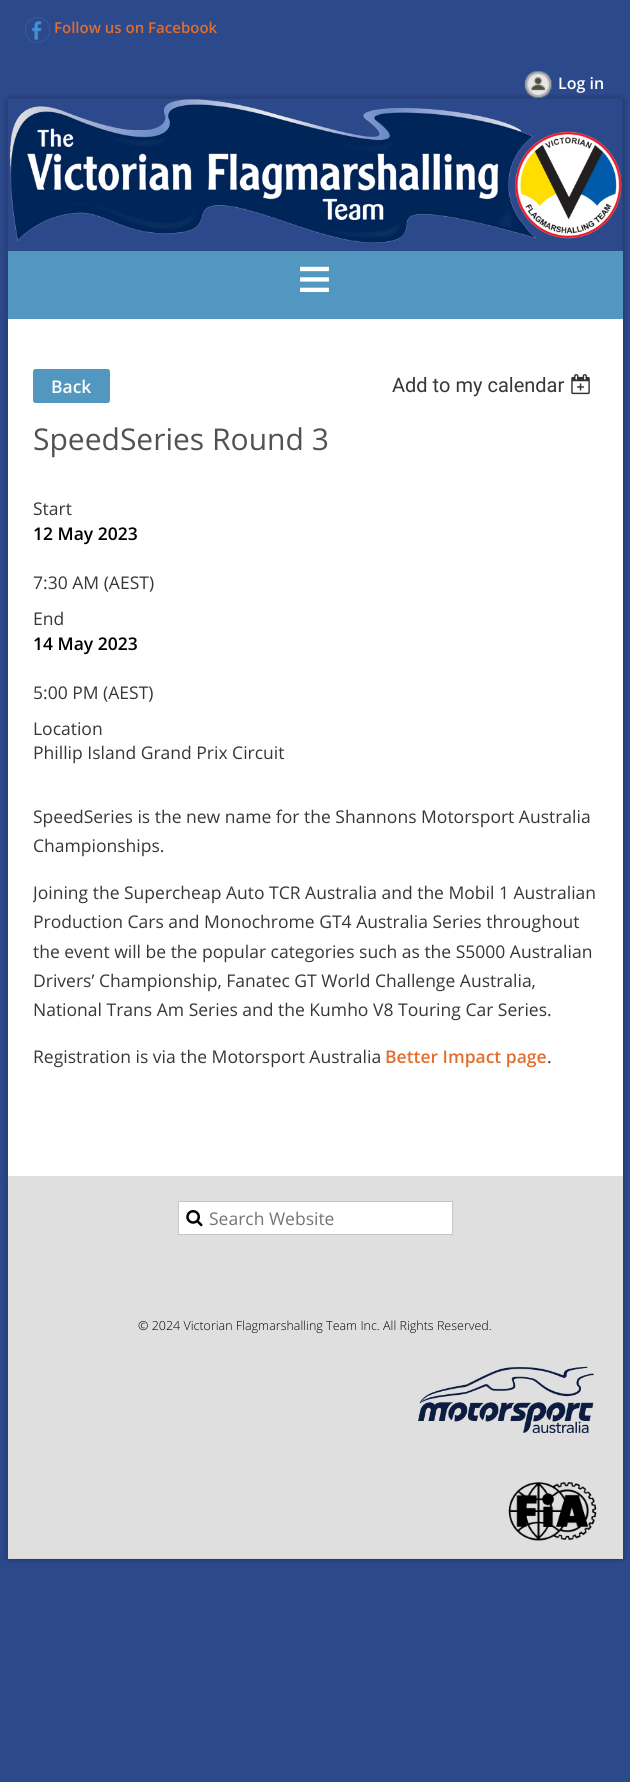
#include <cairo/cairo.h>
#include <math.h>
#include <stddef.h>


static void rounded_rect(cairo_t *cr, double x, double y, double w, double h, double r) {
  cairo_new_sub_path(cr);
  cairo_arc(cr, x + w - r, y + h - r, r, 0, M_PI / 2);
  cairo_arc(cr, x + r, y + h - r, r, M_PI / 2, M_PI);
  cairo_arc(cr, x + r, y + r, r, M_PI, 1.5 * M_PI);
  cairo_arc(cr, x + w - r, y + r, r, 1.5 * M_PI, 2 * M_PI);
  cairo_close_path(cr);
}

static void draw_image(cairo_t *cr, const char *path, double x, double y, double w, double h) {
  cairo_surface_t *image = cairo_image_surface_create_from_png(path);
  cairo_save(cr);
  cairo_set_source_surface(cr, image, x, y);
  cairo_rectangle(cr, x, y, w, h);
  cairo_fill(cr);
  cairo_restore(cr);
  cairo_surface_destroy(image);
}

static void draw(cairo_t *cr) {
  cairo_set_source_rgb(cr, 44 / 255.0, 73 / 255.0, 140 / 255.0);
  cairo_paint(cr);
  draw_image(cr, "images/1.png", 25, 17, 25, 26);
  draw_image(cr, "images/3.png", 5, 94, 620, 5);
  draw_image(cr, "images/4.png", 13, 94, 604, 5);
  draw_image(cr, "images/2.png", 524, 71, 28, 27);
  draw_image(cr, "images/5.png", 2, 98, 626, 153);
  draw_image(cr, "images/6.png", 9, 99, 613, 144);
  draw_image(cr, "images/7.png", 2, 251, 626, 68);
  cairo_set_source_rgb(cr, 82 / 255.0, 151 / 255.0, 191 / 255.0);
  cairo_rectangle(cr, 8, 251, 615, 68);
  cairo_fill(cr);
  draw_image(cr, "images/8.png", 2, 319, 626, 857);
  cairo_set_source_rgb(cr, 1, 1, 1);
  cairo_rectangle(cr, 8, 319, 615, 857);
  cairo_fill(cr);
  cairo_set_source_rgb(cr, 82 / 255.0, 151 / 255.0, 191 / 255.0);
  rounded_rect(cr, 33, 369, 77, 34, 2.5);
  cairo_fill(cr);
  draw_image(cr, "images/9.png", 571, 374, 19, 21);
  draw_image(cr, "images/10.png", 2, 1176, 626, 383);
  cairo_set_source_rgb(cr, 223 / 255.0, 223 / 255.0, 223 / 255.0);
  cairo_rectangle(cr, 8, 1176, 615, 383);
  cairo_fill(cr);
  cairo_set_source_rgb(cr, 1, 1, 1);
  cairo_rectangle(cr, 178.5, 1201.5, 274, 33);
  cairo_fill_preserve(cr);
  cairo_set_source_rgb(cr, 198 / 255.0, 198 / 255.0, 198 / 255.0);
  cairo_set_line_width(cr, 1);
  cairo_stroke(cr);
  draw_image(cr, "images/11.png", 186, 1210, 17, 17);
  draw_image(cr, "images/12.png", 418, 1366, 176, 67);
  draw_image(cr, "images/13.png", 508, 1482, 89, 59);
  draw_image(cr, "images/14.png", 4, 1558, 622, 6);
  draw_image(cr, "images/15.png", 13, 1558, 604, 6);
  cairo_select_font_face(cr, "Open Sans SemiBold", CAIRO_FONT_SLANT_NORMAL, CAIRO_FONT_WEIGHT_NORMAL);
  cairo_set_font_size(cr, 15);
  cairo_set_source_rgb(cr, 226 / 255.0, 109 / 255.0, 44 / 255.0);
  cairo_move_to(cr, 54, 33);
  cairo_show_text(cr, "Follow us on Facebook");
  cairo_set_font_size(cr, 16);
  cairo_set_source_rgb(cr, 1, 1, 1);
  cairo_move_to(cr, 558, 89);
  cairo_show_text(cr, "Log in");
  cairo_select_font_face(cr, "Liberation Serif", CAIRO_FONT_SLANT_NORMAL, CAIRO_FONT_WEIGHT_BOLD);
  cairo_set_font_size(cr, 62);
  cairo_move_to(cr, 297, 300);
  cairo_show_text(cr, "≡");
  cairo_select_font_face(cr, "Open Sans SemiBold", CAIRO_FONT_SLANT_NORMAL, CAIRO_FONT_WEIGHT_NORMAL);
  cairo_set_font_size(cr, 17.5);
  cairo_move_to(cr, 51, 393);
  cairo_show_text(cr, "Back");
  cairo_select_font_face(cr, "Roboto", CAIRO_FONT_SLANT_NORMAL, CAIRO_FONT_WEIGHT_NORMAL);
  cairo_set_font_size(cr, 20);
  cairo_set_source_rgb(cr, 55 / 255.0, 55 / 255.0, 55 / 255.0);
  cairo_move_to(cr, 392, 392);
  cairo_show_text(cr, "Add to my calendar");
  cairo_select_font_face(cr, "Open Sans", CAIRO_FONT_SLANT_NORMAL, CAIRO_FONT_WEIGHT_NORMAL);
  cairo_set_font_size(cr, 30);
  cairo_set_source_rgb(cr, 82 / 255.0, 82 / 255.0, 82 / 255.0);
  cairo_move_to(cr, 33, 450);
  cairo_show_text(cr, "SpeedSeries Round 3");
  cairo_set_font_size(cr, 17.5);
  cairo_set_source_rgb(cr, 55 / 255.0, 55 / 255.0, 55 / 255.0);
  cairo_move_to(cr, 33, 515);
  cairo_show_text(cr, "Start");
  cairo_select_font_face(cr, "Open Sans SemiBold", CAIRO_FONT_SLANT_NORMAL, CAIRO_FONT_WEIGHT_NORMAL);
  cairo_set_source_rgb(cr, 0, 0, 0);
  cairo_move_to(cr, 33, 540);
  cairo_show_text(cr, "12 May 2023");
  cairo_select_font_face(cr, "Open Sans", CAIRO_FONT_SLANT_NORMAL, CAIRO_FONT_WEIGHT_NORMAL);
  cairo_set_source_rgb(cr, 55 / 255.0, 55 / 255.0, 55 / 255.0);
  cairo_move_to(cr, 33, 589);
  cairo_show_text(cr, "7:30 AM (AEST)");
  cairo_move_to(cr, 33, 625);
  cairo_show_text(cr, "End");
  cairo_select_font_face(cr, "Open Sans SemiBold", CAIRO_FONT_SLANT_NORMAL, CAIRO_FONT_WEIGHT_NORMAL);
  cairo_set_source_rgb(cr, 0, 0, 0);
  cairo_move_to(cr, 33, 650);
  cairo_show_text(cr, "14 May 2023");
  cairo_select_font_face(cr, "Open Sans", CAIRO_FONT_SLANT_NORMAL, CAIRO_FONT_WEIGHT_NORMAL);
  cairo_set_source_rgb(cr, 55 / 255.0, 55 / 255.0, 55 / 255.0);
  cairo_move_to(cr, 33, 699);
  cairo_show_text(cr, "5:00 PM (AEST)");
  cairo_move_to(cr, 33, 735);
  cairo_show_text(cr, "Location");
  cairo_move_to(cr, 33, 759);
  cairo_show_text(cr, "Phillip Island Grand Prix Circuit");
  cairo_move_to(cr, 33, 823);
  cairo_show_text(cr, "SpeedSeries is the new name for the Shannons Motorsport Australia");
  cairo_move_to(cr, 33, 852);
  cairo_show_text(cr, "Championships.");
  cairo_save(cr);
  cairo_rectangle(cr, 33, 344, 565, 782);
  cairo_clip(cr);
  cairo_move_to(cr, 33, 899);
  cairo_show_text(cr, "Joining the Supercheap Auto TCR Australia and the Mobil 1 Australian");
  cairo_restore(cr);
  cairo_move_to(cr, 33, 928);
  cairo_show_text(cr, "Production Cars and Monochrome GT4 Australia Series throughout");
  cairo_move_to(cr, 33, 958);
  cairo_show_text(cr, "the event will be the popular categories such as the S5000 Australian");
  cairo_move_to(cr, 33, 987);
  cairo_show_text(cr, "Drivers’ Championship, Fanatec GT World Challenge Australia,");
  cairo_move_to(cr, 33, 1016);
  cairo_show_text(cr, "National Trans Am Series and the Kumho V8 Touring Car Series.");
  cairo_move_to(cr, 33, 1063);
  cairo_show_text(cr, "Registration is via the Motorsport Australia");
  cairo_select_font_face(cr, "Open Sans SemiBold", CAIRO_FONT_SLANT_NORMAL, CAIRO_FONT_WEIGHT_NORMAL);
  cairo_set_source_rgb(cr, 226 / 255.0, 109 / 255.0, 44 / 255.0);
  cairo_move_to(cr, 385, 1063);
  cairo_show_text(cr, "Better Impact page");
  cairo_select_font_face(cr, "Open Sans", CAIRO_FONT_SLANT_NORMAL, CAIRO_FONT_WEIGHT_NORMAL);
  cairo_set_source_rgb(cr, 55 / 255.0, 55 / 255.0, 55 / 255.0);
  cairo_move_to(cr, 547, 1063);
  cairo_show_text(cr, ".");
  cairo_set_source_rgb(cr, 117 / 255.0, 117 / 255.0, 117 / 255.0);
  cairo_move_to(cr, 209, 1225);
  cairo_show_text(cr, "Search Website");
  cairo_select_font_face(cr, "Open Sans Light", CAIRO_FONT_SLANT_NORMAL, CAIRO_FONT_WEIGHT_NORMAL);
  cairo_set_font_size(cr, 12.5);
  cairo_set_source_rgb(cr, 0, 0, 0);
  cairo_move_to(cr, 138, 1330);
  cairo_show_text(cr, "© 2024 Victorian Flagmarshalling Team Inc. All Rights Reserved.");
}

int main(void) {
  cairo_surface_t *surface = cairo_image_surface_create(CAIRO_FORMAT_RGB24, 630, 1782);
  cairo_t *cr = cairo_create(surface);
  cairo_font_options_t *options = cairo_font_options_create();
  cairo_font_options_set_hint_metrics(options, CAIRO_HINT_METRICS_OFF);
  cairo_font_options_set_hint_style(options, CAIRO_HINT_STYLE_NONE);
  cairo_set_font_options(cr, options);
  cairo_set_miter_limit(cr, 4);
  draw(cr);
  cairo_surface_write_to_png(surface, "out.png");
  cairo_font_options_destroy(options);
  cairo_destroy(cr);
  cairo_surface_destroy(surface);
  return 0;
}
